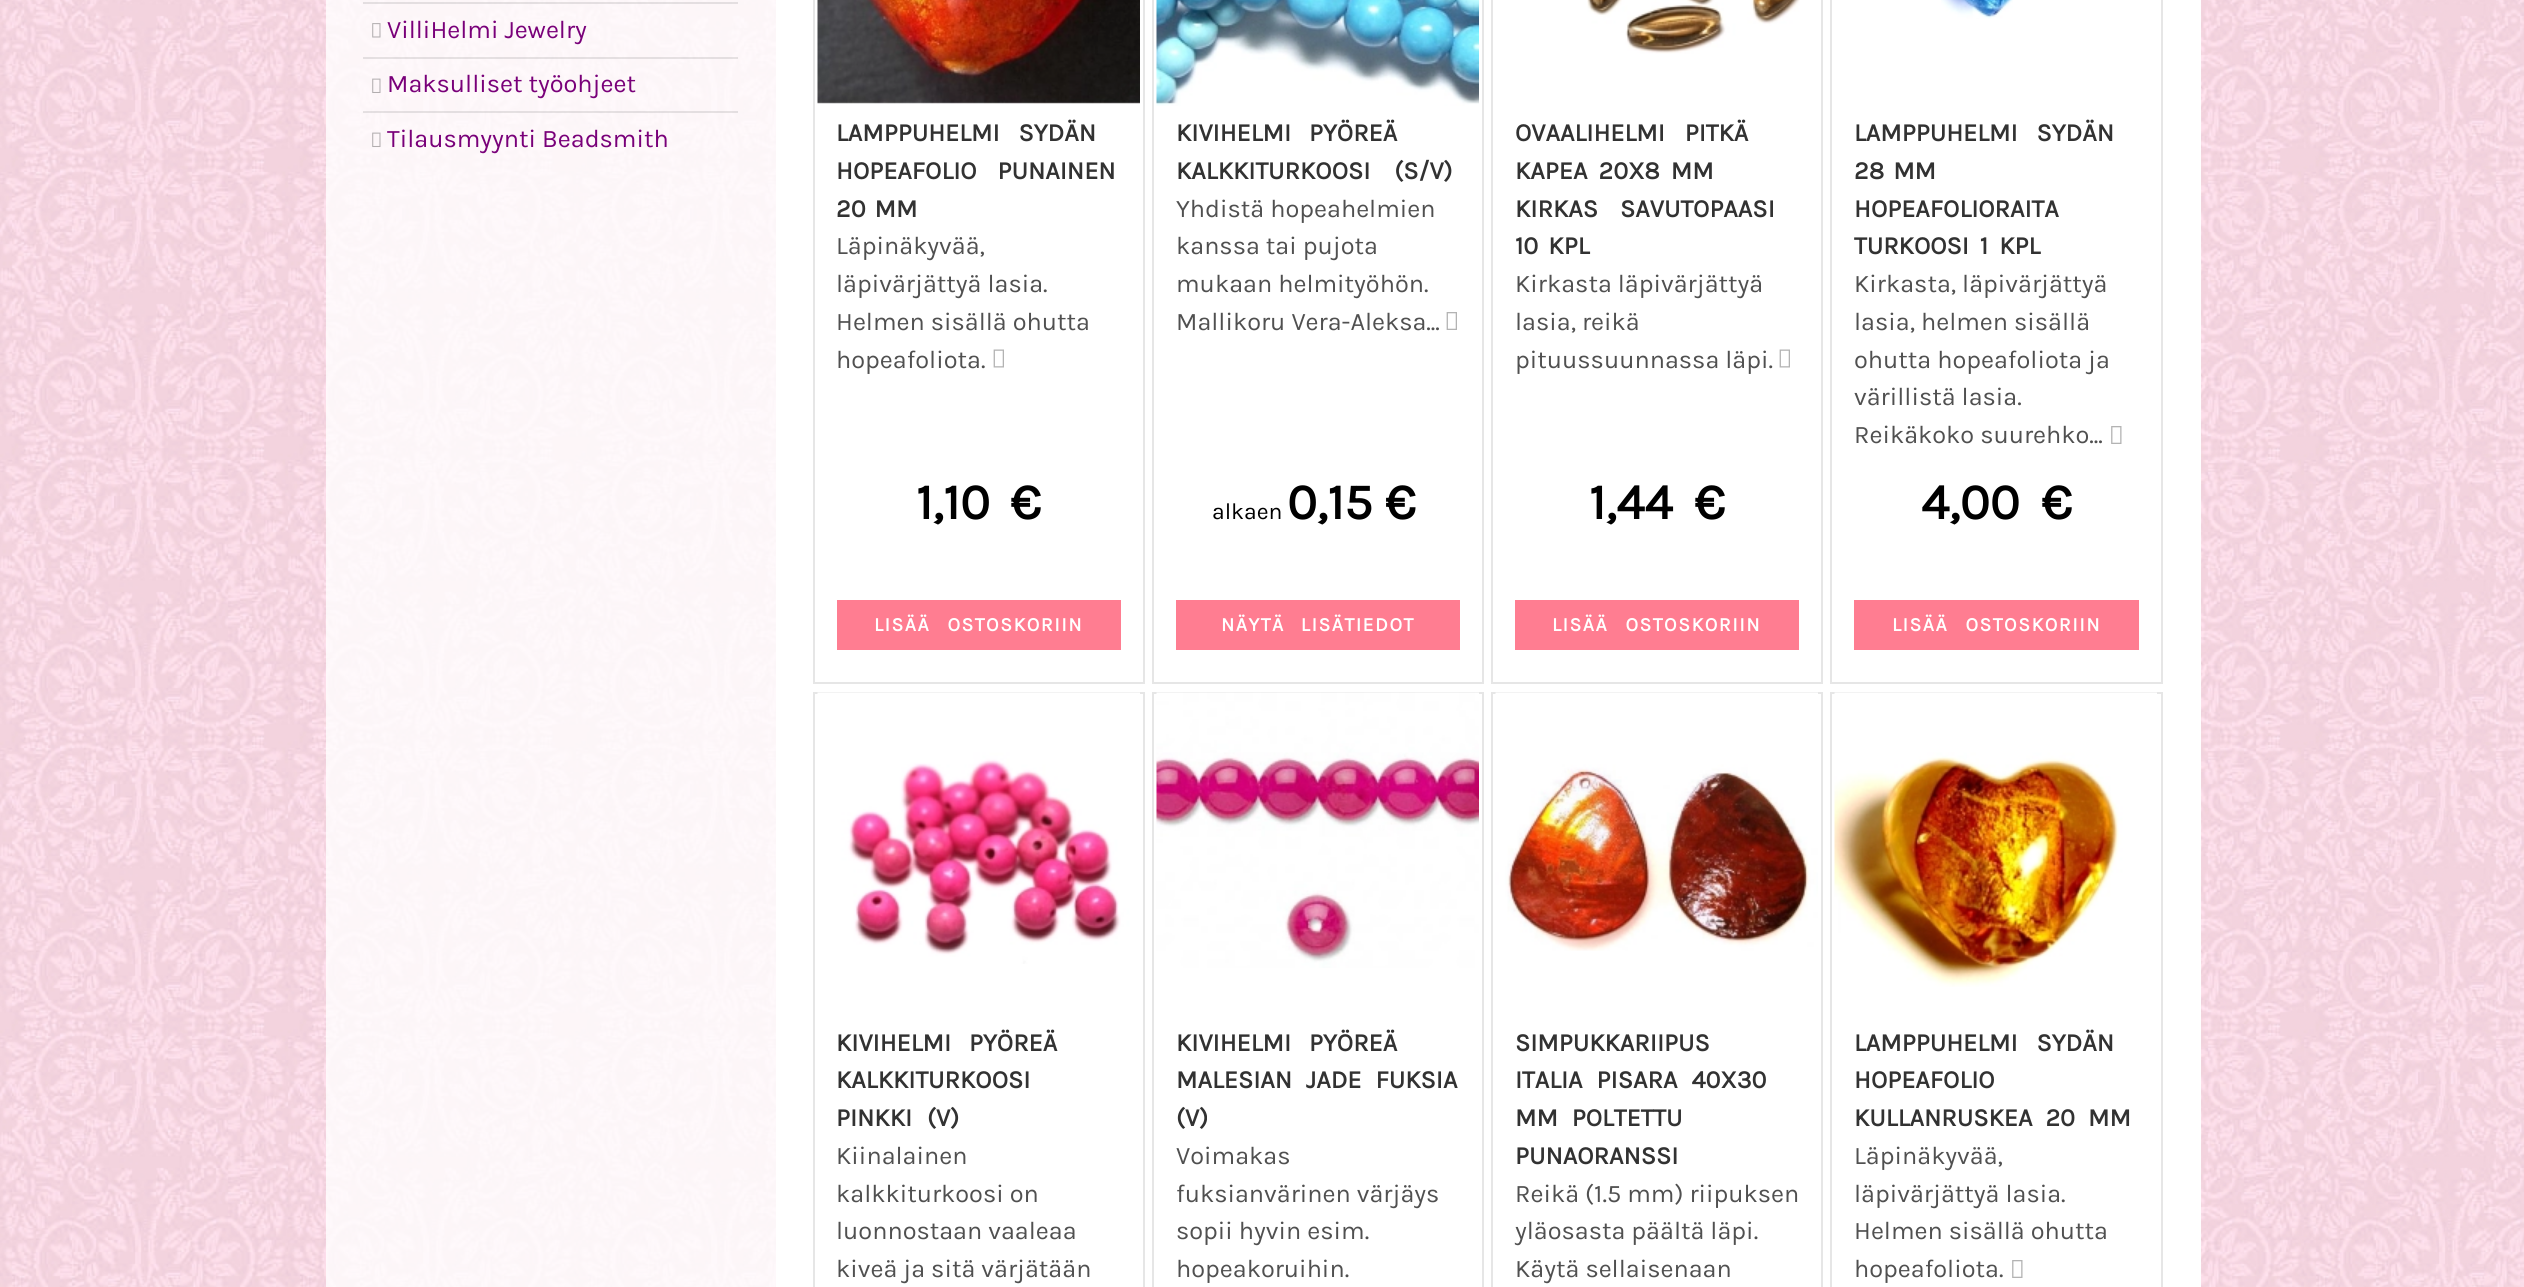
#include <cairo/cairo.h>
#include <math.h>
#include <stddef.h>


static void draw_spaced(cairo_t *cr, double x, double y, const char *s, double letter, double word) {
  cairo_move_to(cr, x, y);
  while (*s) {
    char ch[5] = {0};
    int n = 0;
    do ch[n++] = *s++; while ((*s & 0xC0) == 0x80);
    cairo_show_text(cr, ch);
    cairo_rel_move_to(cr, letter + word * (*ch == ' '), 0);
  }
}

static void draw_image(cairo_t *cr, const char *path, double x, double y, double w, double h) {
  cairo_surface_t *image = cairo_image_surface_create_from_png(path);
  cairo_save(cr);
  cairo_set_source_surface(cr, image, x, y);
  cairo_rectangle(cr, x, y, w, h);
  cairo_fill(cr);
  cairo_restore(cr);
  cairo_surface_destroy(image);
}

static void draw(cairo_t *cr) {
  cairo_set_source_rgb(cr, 1, 1, 1);
  cairo_paint(cr);
  draw_image(cr, "images/1.png", 0, 0, 2524, 1287);
  cairo_set_source_rgba(cr, 1, 1, 1, 0.8);
  cairo_rectangle(cr, 326, 0, 450, 1287);
  cairo_fill(cr);
  cairo_set_source_rgba(cr, 0, 0, 0, 0.1);
  cairo_rectangle(cr, 363, 2, 375, 2);
  cairo_fill(cr);
  cairo_rectangle(cr, 363, 57, 375, 2);
  cairo_fill(cr);
  draw_image(cr, "images/2.png", 372, 23, 9, 15);
  cairo_rectangle(cr, 363, 111, 375, 2);
  cairo_fill(cr);
  draw_image(cr, "images/3.png", 372, 78, 9, 15);
  draw_image(cr, "images/4.png", 372, 132, 9, 15);
  cairo_set_source_rgb(cr, 1, 1, 1);
  cairo_rectangle(cr, 776, 0, 1425, 1287);
  cairo_fill(cr);
  cairo_rectangle(cr, 814, -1, 330, 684);
  cairo_set_source_rgb(cr, 230 / 255.0, 230 / 255.0, 230 / 255.0);
  cairo_stroke(cr);
  draw_image(cr, "images/5.png", 817, 0, 323, 104);
  draw_image(cr, "images/6.png", 993, 349, 11, 19);
  cairo_set_source_rgb(cr, 1, 125 / 255.0, 145 / 255.0);
  cairo_rectangle(cr, 837, 600, 284, 50);
  cairo_fill(cr);
  cairo_rectangle(cr, 1153, -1, 330, 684);
  cairo_set_source_rgb(cr, 230 / 255.0, 230 / 255.0, 230 / 255.0);
  cairo_stroke(cr);
  draw_image(cr, "images/7.png", 1156, 0, 323, 106);
  draw_image(cr, "images/8.png", 1446, 312, 11, 18);
  cairo_set_source_rgb(cr, 1, 125 / 255.0, 145 / 255.0);
  cairo_rectangle(cr, 1176, 600, 284, 50);
  cairo_fill(cr);
  cairo_rectangle(cr, 1492, -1, 330, 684);
  cairo_set_source_rgb(cr, 230 / 255.0, 230 / 255.0, 230 / 255.0);
  cairo_stroke(cr);
  draw_image(cr, "images/9.png", 1587, 0, 213, 54);
  draw_image(cr, "images/6.png", 1779, 349, 11, 19);
  cairo_set_source_rgb(cr, 1, 125 / 255.0, 145 / 255.0);
  cairo_rectangle(cr, 1515, 600, 284, 50);
  cairo_fill(cr);
  cairo_rectangle(cr, 1831, -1, 331, 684);
  cairo_set_source_rgb(cr, 230 / 255.0, 230 / 255.0, 230 / 255.0);
  cairo_stroke(cr);
  draw_image(cr, "images/10.png", 1941, 0, 72, 19);
  draw_image(cr, "images/11.png", 2111, 426, 11, 18);
  cairo_set_source_rgb(cr, 1, 125 / 255.0, 145 / 255.0);
  cairo_rectangle(cr, 1854, 600, 285, 50);
  cairo_fill(cr);
  cairo_rectangle(cr, 814, 693, 330, 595);
  cairo_set_source_rgb(cr, 230 / 255.0, 230 / 255.0, 230 / 255.0);
  cairo_stroke(cr);
  draw_image(cr, "images/12.png", 817, 692, 323, 272);
  cairo_rectangle(cr, 1153, 693, 330, 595);
  cairo_stroke(cr);
  draw_image(cr, "images/13.png", 1156, 692, 323, 276);
  cairo_rectangle(cr, 1492, 693, 330, 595);
  cairo_stroke(cr);
  draw_image(cr, "images/14.png", 1495, 692, 323, 259);
  cairo_rectangle(cr, 1831, 693, 331, 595);
  cairo_stroke(cr);
  draw_image(cr, "images/15.png", 1834, 692, 323, 295);
  draw_image(cr, "images/11.png", 2012, 1260, 11, 18);
  cairo_select_font_face(cr, "Karla", CAIRO_FONT_SLANT_NORMAL, CAIRO_FONT_WEIGHT_NORMAL);
  cairo_set_font_size(cr, 25.25);
  cairo_set_source_rgb(cr, 121 / 255.0, 0, 121 / 255.0);
  cairo_move_to(cr, 387, 38);
  cairo_show_text(cr, "VilliHelmi Jewelry");
  cairo_move_to(cr, 387, 92);
  cairo_show_text(cr, "Maksulliset työohjeet");
  cairo_move_to(cr, 387, 147);
  cairo_show_text(cr, "Tilausmyynti Beadsmith");
  cairo_select_font_face(cr, "Karla", CAIRO_FONT_SLANT_NORMAL, CAIRO_FONT_WEIGHT_BOLD);
  cairo_set_source_rgb(cr, 50 / 255.0, 50 / 255.0, 50 / 255.0);
  draw_spaced(cr, 836, 141, "LAMPPUHELMI SYDÄN", 0, 13);
  draw_spaced(cr, 836, 179, "HOPEAFOLIO PUNAINEN", 0, 15);
  draw_spaced(cr, 836, 217, "20 MM", 0, 3);
  cairo_select_font_face(cr, "Karla", CAIRO_FONT_SLANT_NORMAL, CAIRO_FONT_WEIGHT_NORMAL);
  cairo_set_source_rgb(cr, 80 / 255.0, 80 / 255.0, 80 / 255.0);
  cairo_move_to(cr, 836, 254);
  cairo_show_text(cr, "Läpinäkyvää,");
  cairo_move_to(cr, 836, 292);
  cairo_show_text(cr, "läpivärjättyä lasia.");
  cairo_move_to(cr, 836, 330);
  cairo_show_text(cr, "Helmen sisällä ohutta");
  cairo_move_to(cr, 836, 368);
  cairo_show_text(cr, "hopeafoliota.");
  cairo_select_font_face(cr, "Karla", CAIRO_FONT_SLANT_NORMAL, CAIRO_FONT_WEIGHT_BOLD);
  cairo_set_font_size(cr, 19.5);
  cairo_set_source_rgb(cr, 1, 1, 1);
  draw_spaced(cr, 874, 631, "LISÄÄ OSTOSKORIIN", 1.5, 11);
  cairo_set_font_size(cr, 50.5);
  cairo_set_source_rgb(cr, 0, 0, 0);
  cairo_move_to(cr, 916, 519);
  cairo_show_text(cr, "1,10");
  cairo_move_to(cr, 1010, 519);
  cairo_show_text(cr, "€");
  cairo_set_font_size(cr, 25.25);
  cairo_set_source_rgb(cr, 50 / 255.0, 50 / 255.0, 50 / 255.0);
  draw_spaced(cr, 1176, 141, "KIVIHELMI PYÖREÄ", 0, 12);
  draw_spaced(cr, 1176, 179, "KALKKITURKOOSI (S/V)", 0, 18);
  cairo_select_font_face(cr, "Karla", CAIRO_FONT_SLANT_NORMAL, CAIRO_FONT_WEIGHT_NORMAL);
  cairo_set_source_rgb(cr, 80 / 255.0, 80 / 255.0, 80 / 255.0);
  cairo_move_to(cr, 1176, 217);
  cairo_show_text(cr, "Yhdistä hopeahelmien");
  cairo_move_to(cr, 1176, 254);
  cairo_show_text(cr, "kanssa tai pujota");
  cairo_move_to(cr, 1176, 292);
  cairo_show_text(cr, "mukaan helmityöhön.");
  cairo_move_to(cr, 1176, 330);
  cairo_show_text(cr, "Mallikoru Vera-Aleksa...");
  cairo_select_font_face(cr, "Karla", CAIRO_FONT_SLANT_NORMAL, CAIRO_FONT_WEIGHT_BOLD);
  cairo_set_font_size(cr, 19.5);
  cairo_set_source_rgb(cr, 1, 1, 1);
  draw_spaced(cr, 1221, 631, "NÄYTÄ LISÄTIEDOT", 1.5, 10);
  cairo_select_font_face(cr, "Karla", CAIRO_FONT_SLANT_NORMAL, CAIRO_FONT_WEIGHT_NORMAL);
  cairo_set_font_size(cr, 23);
  cairo_set_source_rgb(cr, 0, 0, 0);
  cairo_move_to(cr, 1212, 519);
  cairo_show_text(cr, "alkaen");
  cairo_select_font_face(cr, "Karla", CAIRO_FONT_SLANT_NORMAL, CAIRO_FONT_WEIGHT_BOLD);
  cairo_set_font_size(cr, 50.5);
  cairo_move_to(cr, 1287, 519);
  cairo_show_text(cr, "0,15 €");
  cairo_set_font_size(cr, 25.25);
  cairo_set_source_rgb(cr, 50 / 255.0, 50 / 255.0, 50 / 255.0);
  draw_spaced(cr, 1515, 141, "OVAALIHELMI PITKÄ", 0, 14);
  draw_spaced(cr, 1515, 179, "KAPEA 20X8 MM", 0, 5);
  draw_spaced(cr, 1515, 217, "KIRKAS SAVUTOPAASI", 0, 16);
  draw_spaced(cr, 1515, 254, "10 KPL", 0, 4);
  cairo_select_font_face(cr, "Karla", CAIRO_FONT_SLANT_NORMAL, CAIRO_FONT_WEIGHT_NORMAL);
  cairo_set_source_rgb(cr, 80 / 255.0, 80 / 255.0, 80 / 255.0);
  cairo_move_to(cr, 1515, 292);
  cairo_show_text(cr, "Kirkasta läpivärjättyä");
  cairo_move_to(cr, 1515, 330);
  cairo_show_text(cr, "lasia, reikä");
  cairo_move_to(cr, 1515, 368);
  cairo_show_text(cr, "pituussuunnassa läpi.");
  cairo_select_font_face(cr, "Karla", CAIRO_FONT_SLANT_NORMAL, CAIRO_FONT_WEIGHT_BOLD);
  cairo_set_font_size(cr, 19.5);
  cairo_set_source_rgb(cr, 1, 1, 1);
  draw_spaced(cr, 1552, 631, "LISÄÄ OSTOSKORIIN", 1.5, 11);
  cairo_set_font_size(cr, 50.5);
  cairo_set_source_rgb(cr, 0, 0, 0);
  cairo_move_to(cr, 1589, 519);
  cairo_show_text(cr, "1,44");
  cairo_move_to(cr, 1694, 519);
  cairo_show_text(cr, "€");
  cairo_set_font_size(cr, 25.25);
  cairo_set_source_rgb(cr, 50 / 255.0, 50 / 255.0, 50 / 255.0);
  draw_spaced(cr, 1854, 141, "LAMPPUHELMI SYDÄN", 0, 13);
  draw_spaced(cr, 1854, 179, "28 MM", 0, 3);
  cairo_move_to(cr, 1854, 217);
  cairo_show_text(cr, "HOPEAFOLIORAITA");
  draw_spaced(cr, 1854, 254, "TURKOOSI 1 KPL", 0, 5);
  cairo_select_font_face(cr, "Karla", CAIRO_FONT_SLANT_NORMAL, CAIRO_FONT_WEIGHT_NORMAL);
  cairo_set_source_rgb(cr, 80 / 255.0, 80 / 255.0, 80 / 255.0);
  cairo_move_to(cr, 1854, 292);
  cairo_show_text(cr, "Kirkasta, läpivärjättyä");
  cairo_move_to(cr, 1854, 330);
  cairo_show_text(cr, "lasia, helmen sisällä");
  cairo_move_to(cr, 1854, 368);
  cairo_show_text(cr, "ohutta hopeafoliota ja");
  cairo_move_to(cr, 1854, 405);
  cairo_show_text(cr, "värillistä lasia.");
  cairo_move_to(cr, 1854, 443);
  cairo_show_text(cr, "Reikäkoko suurehko...");
  cairo_select_font_face(cr, "Karla", CAIRO_FONT_SLANT_NORMAL, CAIRO_FONT_WEIGHT_BOLD);
  cairo_set_font_size(cr, 19.5);
  cairo_set_source_rgb(cr, 1, 1, 1);
  draw_spaced(cr, 1892, 631, "LISÄÄ OSTOSKORIIN", 1.5, 11);
  cairo_set_font_size(cr, 50.5);
  cairo_set_source_rgb(cr, 0, 0, 0);
  cairo_move_to(cr, 1921, 519);
  cairo_show_text(cr, "4,00");
  cairo_move_to(cr, 2041, 519);
  cairo_show_text(cr, "€");
  cairo_set_font_size(cr, 25.25);
  cairo_set_source_rgb(cr, 50 / 255.0, 50 / 255.0, 50 / 255.0);
  draw_spaced(cr, 836, 1051, "KIVIHELMI PYÖREÄ", 0, 12);
  cairo_move_to(cr, 836, 1088);
  cairo_show_text(cr, "KALKKITURKOOSI");
  draw_spaced(cr, 836, 1126, "PINKKI (V)", 0, 9);
  cairo_select_font_face(cr, "Karla", CAIRO_FONT_SLANT_NORMAL, CAIRO_FONT_WEIGHT_NORMAL);
  cairo_set_source_rgb(cr, 80 / 255.0, 80 / 255.0, 80 / 255.0);
  cairo_move_to(cr, 836, 1164);
  cairo_show_text(cr, "Kiinalainen");
  cairo_move_to(cr, 836, 1202);
  cairo_show_text(cr, "kalkkiturkoosi on");
  cairo_move_to(cr, 836, 1239);
  cairo_show_text(cr, "luonnostaan vaaleaa");
  cairo_move_to(cr, 836, 1277);
  cairo_show_text(cr, "kiveä ja sitä värjätään");
  cairo_select_font_face(cr, "Karla", CAIRO_FONT_SLANT_NORMAL, CAIRO_FONT_WEIGHT_BOLD);
  cairo_set_source_rgb(cr, 50 / 255.0, 50 / 255.0, 50 / 255.0);
  draw_spaced(cr, 1176, 1051, "KIVIHELMI PYÖREÄ", 0, 12);
  draw_spaced(cr, 1176, 1088, "MALESIAN JADE FUKSIA", 0, 8);
  cairo_move_to(cr, 1176, 1126);
  cairo_show_text(cr, "(V)");
  cairo_select_font_face(cr, "Karla", CAIRO_FONT_SLANT_NORMAL, CAIRO_FONT_WEIGHT_NORMAL);
  cairo_set_source_rgb(cr, 80 / 255.0, 80 / 255.0, 80 / 255.0);
  cairo_move_to(cr, 1176, 1164);
  cairo_show_text(cr, "Voimakas");
  cairo_move_to(cr, 1176, 1202);
  cairo_show_text(cr, "fuksianvärinen värjäys");
  cairo_move_to(cr, 1176, 1239);
  cairo_show_text(cr, "sopii hyvin esim.");
  cairo_move_to(cr, 1176, 1277);
  cairo_show_text(cr, "hopeakoruihin.");
  cairo_select_font_face(cr, "Karla", CAIRO_FONT_SLANT_NORMAL, CAIRO_FONT_WEIGHT_BOLD);
  cairo_set_source_rgb(cr, 50 / 255.0, 50 / 255.0, 50 / 255.0);
  cairo_move_to(cr, 1515, 1051);
  cairo_show_text(cr, "SIMPUKKARIIPUS");
  draw_spaced(cr, 1515, 1088, "ITALIA PISARA 40X30", 0, 8);
  draw_spaced(cr, 1515, 1126, "MM POLTETTU", 0, 8);
  cairo_move_to(cr, 1515, 1164);
  cairo_show_text(cr, "PUNAORANSSI");
  cairo_select_font_face(cr, "Karla", CAIRO_FONT_SLANT_NORMAL, CAIRO_FONT_WEIGHT_NORMAL);
  cairo_set_source_rgb(cr, 80 / 255.0, 80 / 255.0, 80 / 255.0);
  cairo_move_to(cr, 1515, 1202);
  cairo_show_text(cr, "Reikä (1.5 mm) riipuksen");
  cairo_move_to(cr, 1515, 1239);
  cairo_show_text(cr, "yläosasta päältä läpi.");
  cairo_move_to(cr, 1515, 1277);
  cairo_show_text(cr, "Käytä sellaisenaan");
  cairo_select_font_face(cr, "Karla", CAIRO_FONT_SLANT_NORMAL, CAIRO_FONT_WEIGHT_BOLD);
  cairo_set_source_rgb(cr, 50 / 255.0, 50 / 255.0, 50 / 255.0);
  draw_spaced(cr, 1854, 1051, "LAMPPUHELMI SYDÄN", 0, 13);
  cairo_move_to(cr, 1854, 1088);
  cairo_show_text(cr, "HOPEAFOLIO");
  draw_spaced(cr, 1854, 1126, "KULLANRUSKEA 20 MM", 0, 7);
  cairo_select_font_face(cr, "Karla", CAIRO_FONT_SLANT_NORMAL, CAIRO_FONT_WEIGHT_NORMAL);
  cairo_set_source_rgb(cr, 80 / 255.0, 80 / 255.0, 80 / 255.0);
  cairo_move_to(cr, 1854, 1164);
  cairo_show_text(cr, "Läpinäkyvää,");
  cairo_move_to(cr, 1854, 1202);
  cairo_show_text(cr, "läpivärjättyä lasia.");
  cairo_move_to(cr, 1854, 1239);
  cairo_show_text(cr, "Helmen sisällä ohutta");
  cairo_move_to(cr, 1854, 1277);
  cairo_show_text(cr, "hopeafoliota.");
}

int main(void) {
  cairo_surface_t *surface = cairo_image_surface_create(CAIRO_FORMAT_RGB24, 2524, 1287);
  cairo_t *cr = cairo_create(surface);
  cairo_font_options_t *options = cairo_font_options_create();
  cairo_font_options_set_hint_metrics(options, CAIRO_HINT_METRICS_OFF);
  cairo_font_options_set_hint_style(options, CAIRO_HINT_STYLE_NONE);
  cairo_set_font_options(cr, options);
  cairo_set_miter_limit(cr, 4);
  draw(cr);
  cairo_surface_write_to_png(surface, "out.png");
  cairo_font_options_destroy(options);
  cairo_destroy(cr);
  cairo_surface_destroy(surface);
  return 0;
}
